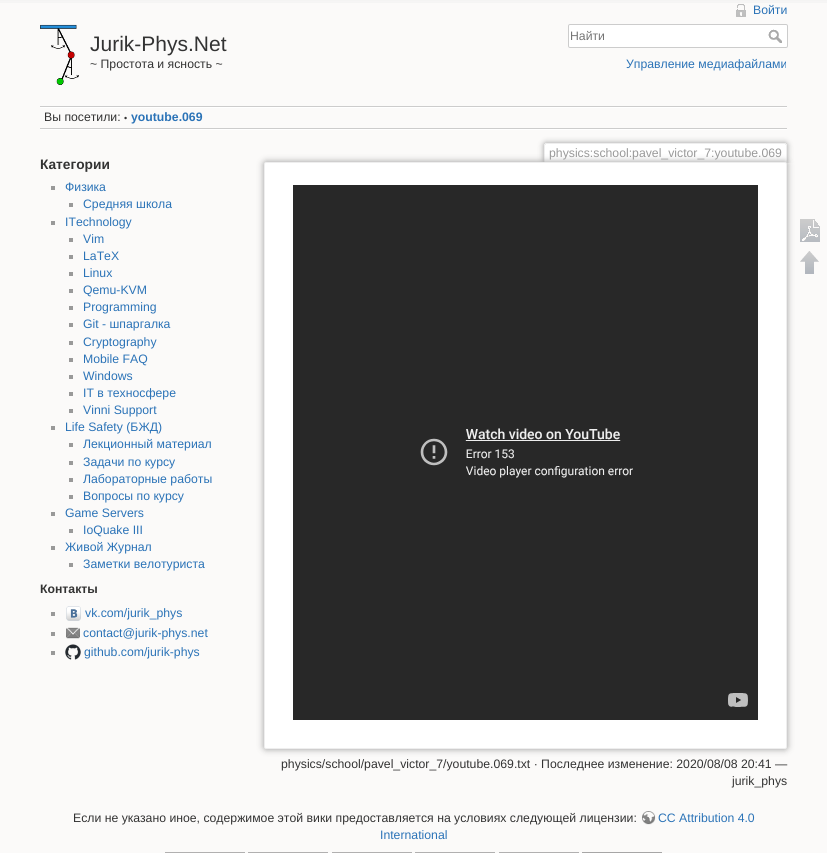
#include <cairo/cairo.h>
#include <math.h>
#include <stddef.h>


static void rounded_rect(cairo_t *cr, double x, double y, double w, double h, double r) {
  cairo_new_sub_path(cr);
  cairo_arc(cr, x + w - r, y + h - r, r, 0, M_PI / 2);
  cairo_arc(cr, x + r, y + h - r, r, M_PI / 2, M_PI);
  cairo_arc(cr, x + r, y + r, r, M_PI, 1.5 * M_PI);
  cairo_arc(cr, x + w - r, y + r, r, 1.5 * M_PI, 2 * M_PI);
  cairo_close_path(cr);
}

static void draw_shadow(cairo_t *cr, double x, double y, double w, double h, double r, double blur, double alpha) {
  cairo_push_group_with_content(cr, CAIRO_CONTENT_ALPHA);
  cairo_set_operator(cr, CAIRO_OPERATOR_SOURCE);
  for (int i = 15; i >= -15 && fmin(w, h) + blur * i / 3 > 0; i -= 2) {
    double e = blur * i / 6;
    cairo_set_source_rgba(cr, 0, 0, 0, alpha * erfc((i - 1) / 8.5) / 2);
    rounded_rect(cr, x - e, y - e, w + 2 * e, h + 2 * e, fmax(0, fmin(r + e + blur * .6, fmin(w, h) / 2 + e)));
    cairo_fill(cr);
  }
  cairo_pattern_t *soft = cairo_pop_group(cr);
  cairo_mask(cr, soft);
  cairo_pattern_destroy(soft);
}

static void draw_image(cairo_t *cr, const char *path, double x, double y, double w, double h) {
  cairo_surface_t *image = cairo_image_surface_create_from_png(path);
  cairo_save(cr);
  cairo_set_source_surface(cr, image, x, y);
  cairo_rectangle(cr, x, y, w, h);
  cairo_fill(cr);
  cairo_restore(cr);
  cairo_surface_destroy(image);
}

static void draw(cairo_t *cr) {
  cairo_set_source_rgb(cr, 251 / 255.0, 250 / 255.0, 249 / 255.0);
  cairo_paint(cr);
  draw_image(cr, "images/1.png", 0, 0, 827, 3);
  draw_image(cr, "images/2.png", 40, 24, 39, 61);
  draw_image(cr, "images/3.png", 736, 4, 10, 13);
  cairo_set_source_rgb(cr, 1, 1, 1);
  rounded_rect(cr, 568.5, 24.5, 219, 23, 1.5);
  cairo_fill_preserve(cr);
  cairo_set_source_rgb(cr, 204 / 255.0, 204 / 255.0, 204 / 255.0);
  cairo_set_line_width(cr, 1);
  cairo_stroke(cr);
  draw_image(cr, "images/4.png", 768, 29, 14, 14);
  cairo_rectangle(cr, 40, 106, 747, 1);
  cairo_fill(cr);
  cairo_set_source_rgb(cr, 1, 1, 1);
  cairo_rectangle(cr, 40, 129, 747, 1);
  cairo_fill(cr);
  cairo_rectangle(cr, 40, 107, 747, 1);
  cairo_fill(cr);
  cairo_set_source_rgb(cr, 204 / 255.0, 204 / 255.0, 204 / 255.0);
  cairo_rectangle(cr, 40, 128, 747, 1);
  cairo_fill(cr);
  cairo_set_source_rgb(cr, 153 / 255.0, 153 / 255.0, 153 / 255.0);
  cairo_rectangle(cr, 51, 186, 4, 4);
  cairo_fill(cr);
  cairo_rectangle(cr, 69, 203, 4, 4);
  cairo_fill(cr);
  cairo_rectangle(cr, 51, 221, 4, 4);
  cairo_fill(cr);
  cairo_rectangle(cr, 69, 238, 4, 4);
  cairo_fill(cr);
  cairo_rectangle(cr, 69, 255, 4, 4);
  cairo_fill(cr);
  cairo_rectangle(cr, 69, 272, 4, 4);
  cairo_fill(cr);
  cairo_rectangle(cr, 69, 289, 4, 4);
  cairo_fill(cr);
  cairo_rectangle(cr, 69, 306, 4, 4);
  cairo_fill(cr);
  cairo_rectangle(cr, 69, 323, 4, 4);
  cairo_fill(cr);
  cairo_rectangle(cr, 69, 341, 4, 4);
  cairo_fill(cr);
  cairo_rectangle(cr, 69, 358, 4, 4);
  cairo_fill(cr);
  cairo_rectangle(cr, 69, 375, 4, 4);
  cairo_fill(cr);
  cairo_rectangle(cr, 69, 392, 4, 4);
  cairo_fill(cr);
  cairo_rectangle(cr, 69, 409, 4, 4);
  cairo_fill(cr);
  cairo_rectangle(cr, 51, 426, 4, 4);
  cairo_fill(cr);
  cairo_rectangle(cr, 69, 443, 4, 4);
  cairo_fill(cr);
  cairo_rectangle(cr, 69, 461, 4, 4);
  cairo_fill(cr);
  cairo_rectangle(cr, 69, 478, 4, 4);
  cairo_fill(cr);
  cairo_rectangle(cr, 69, 495, 4, 4);
  cairo_fill(cr);
  cairo_rectangle(cr, 51, 512, 4, 4);
  cairo_fill(cr);
  cairo_rectangle(cr, 69, 529, 4, 4);
  cairo_fill(cr);
  cairo_rectangle(cr, 51, 546, 4, 4);
  cairo_fill(cr);
  cairo_rectangle(cr, 69, 563, 4, 4);
  cairo_fill(cr);
  cairo_rectangle(cr, 51, 612, 4, 4);
  cairo_fill(cr);
  draw_image(cr, "images/5.png", 66, 606, 15, 15);
  cairo_rectangle(cr, 51, 632, 4, 4);
  cairo_fill(cr);
  draw_image(cr, "images/6.png", 66, 627, 14, 12);
  cairo_rectangle(cr, 51, 651, 4, 4);
  cairo_fill(cr);
  draw_image(cr, "images/7.png", 65, 644, 16, 16);
  cairo_save(cr);
  cairo_rectangle(cr, 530, 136, 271, 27);
  cairo_clip(cr);
  cairo_set_source_rgb(cr, 153 / 255.0, 153 / 255.0, 153 / 255.0);
  draw_shadow(cr, 544, 143, 243, 20, 2, 3, 1);
  cairo_restore(cr);
  cairo_set_source_rgb(cr, 1, 1, 1);
  cairo_new_path(cr);
  cairo_move_to(cr, 546, 144);
  cairo_line_to(cr, 785, 144);
  cairo_curve_to(cr, 785.5, 144, 786, 144.5, 786, 145);
  cairo_line_to(cr, 786, 163);
  cairo_line_to(cr, 545, 163);
  cairo_line_to(cr, 545, 145);
  cairo_curve_to(cr, 545, 144.5, 545.5, 144, 546, 144);
  cairo_close_path(cr);
  cairo_fill(cr);
  cairo_set_source_rgb(cr, 238 / 255.0, 238 / 255.0, 238 / 255.0);
  cairo_rectangle(cr, 545, 143, 241, 1);
  cairo_fill(cr);
  cairo_rectangle(cr, 786, 144, 1, 19);
  cairo_fill(cr);
  cairo_rectangle(cr, 544, 144, 1, 19);
  cairo_fill(cr);
  cairo_set_source_rgb(cr, 153 / 255.0, 153 / 255.0, 153 / 255.0);
  draw_shadow(cr, 264, 162, 523, 587, 2, 3.5, 1);
  cairo_set_source_rgb(cr, 1, 1, 1);
  rounded_rect(cr, 264.5, 162.5, 522, 586, 1.5);
  cairo_fill_preserve(cr);
  cairo_set_source_rgb(cr, 238 / 255.0, 238 / 255.0, 238 / 255.0);
  cairo_stroke(cr);
  draw_image(cr, "images/8.png", 293, 185, 465, 535);
  draw_image(cr, "images/9.png", 800, 219, 20, 23);
  draw_image(cr, "images/10.png", 800, 251, 19, 23);
  draw_image(cr, "images/11.png", 642, 811, 14, 14);
  cairo_set_source_rgb(cr, 177 / 255.0, 176 / 255.0, 176 / 255.0);
  cairo_rectangle(cr, 165, 852, 80, 1);
  cairo_fill(cr);
  cairo_rectangle(cr, 248, 852, 80, 1);
  cairo_fill(cr);
  cairo_rectangle(cr, 332, 852, 80, 1);
  cairo_fill(cr);
  cairo_rectangle(cr, 415, 852, 80, 1);
  cairo_fill(cr);
  cairo_rectangle(cr, 499, 852, 80, 1);
  cairo_fill(cr);
  cairo_set_source_rgb(cr, 167 / 255.0, 166 / 255.0, 166 / 255.0);
  cairo_rectangle(cr, 582, 852, 80, 1);
  cairo_fill(cr);
  cairo_select_font_face(cr, "Liberation Sans", CAIRO_FONT_SLANT_NORMAL, CAIRO_FONT_WEIGHT_NORMAL);
  cairo_set_font_size(cr, 21);
  cairo_set_source_rgb(cr, 51 / 255.0, 51 / 255.0, 51 / 255.0);
  cairo_move_to(cr, 90, 51);
  cairo_show_text(cr, "Jurik-Phys.Net");
  cairo_set_font_size(cr, 12.25);
  cairo_move_to(cr, 90, 68);
  cairo_show_text(cr, "~ Простота и ясность ~");
  cairo_set_source_rgb(cr, 43 / 255.0, 115 / 255.0, 183 / 255.0);
  cairo_move_to(cr, 753, 14);
  cairo_show_text(cr, "Войти");
  cairo_set_source_rgb(cr, 117 / 255.0, 117 / 255.0, 117 / 255.0);
  cairo_move_to(cr, 570, 40);
  cairo_show_text(cr, "Найти");
  cairo_set_source_rgb(cr, 43 / 255.0, 115 / 255.0, 183 / 255.0);
  cairo_move_to(cr, 626, 68);
  cairo_show_text(cr, "Управление медиафайлами");
  cairo_set_source_rgb(cr, 51 / 255.0, 51 / 255.0, 51 / 255.0);
  cairo_move_to(cr, 44, 121);
  cairo_show_text(cr, "Вы посетили:");
  cairo_set_font_size(cr, 9);
  cairo_move_to(cr, 124, 121);
  cairo_show_text(cr, "•");
  cairo_select_font_face(cr, "Liberation Sans", CAIRO_FONT_SLANT_NORMAL, CAIRO_FONT_WEIGHT_BOLD);
  cairo_set_font_size(cr, 12.25);
  cairo_set_source_rgb(cr, 43 / 255.0, 115 / 255.0, 183 / 255.0);
  cairo_move_to(cr, 131, 121);
  cairo_show_text(cr, "youtube.069");
  cairo_set_font_size(cr, 13.75);
  cairo_set_source_rgb(cr, 51 / 255.0, 51 / 255.0, 51 / 255.0);
  cairo_move_to(cr, 40, 169);
  cairo_show_text(cr, "Категории");
  cairo_select_font_face(cr, "Liberation Sans", CAIRO_FONT_SLANT_NORMAL, CAIRO_FONT_WEIGHT_NORMAL);
  cairo_set_font_size(cr, 12.25);
  cairo_set_source_rgb(cr, 43 / 255.0, 115 / 255.0, 183 / 255.0);
  cairo_move_to(cr, 65, 191);
  cairo_show_text(cr, "Физика");
  cairo_move_to(cr, 83, 208);
  cairo_show_text(cr, "Средняя школа");
  cairo_move_to(cr, 65, 226);
  cairo_show_text(cr, "ITechnology");
  cairo_move_to(cr, 83, 243);
  cairo_show_text(cr, "Vim");
  cairo_move_to(cr, 83, 260);
  cairo_show_text(cr, "LaTeX");
  cairo_move_to(cr, 83, 277);
  cairo_show_text(cr, "Linux");
  cairo_move_to(cr, 83, 294);
  cairo_show_text(cr, "Qemu-KVM");
  cairo_move_to(cr, 83, 311);
  cairo_show_text(cr, "Programming");
  cairo_move_to(cr, 83, 328);
  cairo_show_text(cr, "Git - шпаргалка");
  cairo_move_to(cr, 83, 346);
  cairo_show_text(cr, "Cryptography");
  cairo_move_to(cr, 83, 363);
  cairo_show_text(cr, "Mobile FAQ");
  cairo_move_to(cr, 83, 380);
  cairo_show_text(cr, "Windows");
  cairo_move_to(cr, 83, 397);
  cairo_show_text(cr, "IT в техносфере");
  cairo_move_to(cr, 83, 414);
  cairo_show_text(cr, "Vinni Support");
  cairo_move_to(cr, 65, 431);
  cairo_show_text(cr, "Life Safety (БЖД)");
  cairo_move_to(cr, 83, 448);
  cairo_show_text(cr, "Лекционный материал");
  cairo_move_to(cr, 83, 466);
  cairo_show_text(cr, "Задачи по курсу");
  cairo_move_to(cr, 83, 483);
  cairo_show_text(cr, "Лабораторные работы");
  cairo_move_to(cr, 83, 500);
  cairo_show_text(cr, "Вопросы по курсу");
  cairo_move_to(cr, 65, 517);
  cairo_show_text(cr, "Game Servers");
  cairo_move_to(cr, 83, 534);
  cairo_show_text(cr, "IoQuake III");
  cairo_move_to(cr, 65, 551);
  cairo_show_text(cr, "Живой Журнал");
  cairo_move_to(cr, 83, 568);
  cairo_show_text(cr, "Заметки велотуриста");
  cairo_select_font_face(cr, "Liberation Sans", CAIRO_FONT_SLANT_NORMAL, CAIRO_FONT_WEIGHT_BOLD);
  cairo_set_source_rgb(cr, 51 / 255.0, 51 / 255.0, 51 / 255.0);
  cairo_move_to(cr, 40, 593);
  cairo_show_text(cr, "Контакты");
  cairo_select_font_face(cr, "Liberation Sans", CAIRO_FONT_SLANT_NORMAL, CAIRO_FONT_WEIGHT_NORMAL);
  cairo_set_source_rgb(cr, 43 / 255.0, 115 / 255.0, 183 / 255.0);
  cairo_move_to(cr, 85, 617);
  cairo_show_text(cr, "vk.com/jurik_phys");
  cairo_move_to(cr, 83, 637);
  cairo_show_text(cr, "contact@jurik-phys.net");
  cairo_move_to(cr, 84, 656);
  cairo_show_text(cr, "github.com/jurik-phys");
  cairo_set_source_rgb(cr, 153 / 255.0, 153 / 255.0, 153 / 255.0);
  cairo_move_to(cr, 549, 157);
  cairo_show_text(cr, "physics:school:pavel_victor_7:youtube.069");
  cairo_set_source_rgb(cr, 51 / 255.0, 51 / 255.0, 51 / 255.0);
  cairo_move_to(cr, 281, 768);
  cairo_show_text(cr, "physics/school/pavel_victor_7/youtube.069.txt · Последнее изменение: 2020/08/08 20:41 —");
  cairo_move_to(cr, 732, 785);
  cairo_show_text(cr, "jurik_phys");
  cairo_move_to(cr, 73, 822);
  cairo_show_text(cr, "Если не указано иное, содержимое этой вики предоставляется на условиях следующей лицензии:");
  cairo_set_source_rgb(cr, 43 / 255.0, 115 / 255.0, 183 / 255.0);
  cairo_move_to(cr, 658, 822);
  cairo_show_text(cr, "CC Attribution 4.0");
  cairo_move_to(cr, 380, 839);
  cairo_show_text(cr, "International");
}

int main(void) {
  cairo_surface_t *surface = cairo_image_surface_create(CAIRO_FORMAT_RGB24, 827, 853);
  cairo_t *cr = cairo_create(surface);
  cairo_font_options_t *options = cairo_font_options_create();
  cairo_font_options_set_hint_metrics(options, CAIRO_HINT_METRICS_OFF);
  cairo_font_options_set_hint_style(options, CAIRO_HINT_STYLE_NONE);
  cairo_set_font_options(cr, options);
  cairo_set_miter_limit(cr, 4);
  draw(cr);
  cairo_surface_write_to_png(surface, "out.png");
  cairo_font_options_destroy(options);
  cairo_destroy(cr);
  cairo_surface_destroy(surface);
  return 0;
}
